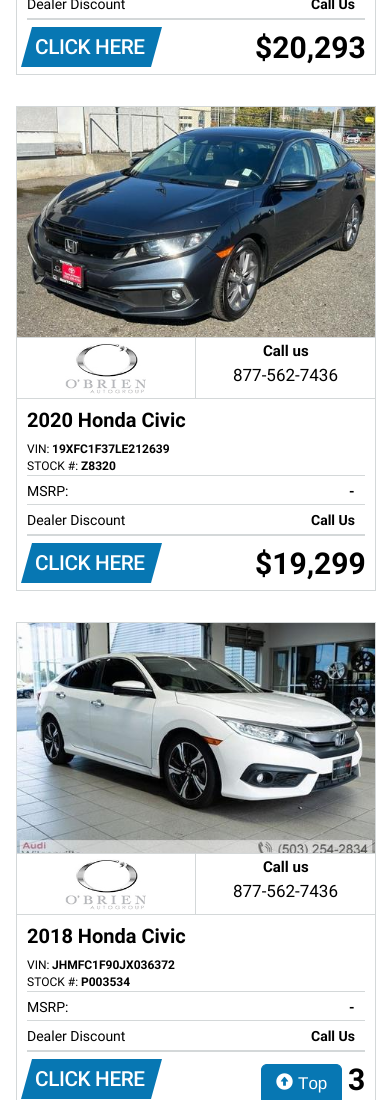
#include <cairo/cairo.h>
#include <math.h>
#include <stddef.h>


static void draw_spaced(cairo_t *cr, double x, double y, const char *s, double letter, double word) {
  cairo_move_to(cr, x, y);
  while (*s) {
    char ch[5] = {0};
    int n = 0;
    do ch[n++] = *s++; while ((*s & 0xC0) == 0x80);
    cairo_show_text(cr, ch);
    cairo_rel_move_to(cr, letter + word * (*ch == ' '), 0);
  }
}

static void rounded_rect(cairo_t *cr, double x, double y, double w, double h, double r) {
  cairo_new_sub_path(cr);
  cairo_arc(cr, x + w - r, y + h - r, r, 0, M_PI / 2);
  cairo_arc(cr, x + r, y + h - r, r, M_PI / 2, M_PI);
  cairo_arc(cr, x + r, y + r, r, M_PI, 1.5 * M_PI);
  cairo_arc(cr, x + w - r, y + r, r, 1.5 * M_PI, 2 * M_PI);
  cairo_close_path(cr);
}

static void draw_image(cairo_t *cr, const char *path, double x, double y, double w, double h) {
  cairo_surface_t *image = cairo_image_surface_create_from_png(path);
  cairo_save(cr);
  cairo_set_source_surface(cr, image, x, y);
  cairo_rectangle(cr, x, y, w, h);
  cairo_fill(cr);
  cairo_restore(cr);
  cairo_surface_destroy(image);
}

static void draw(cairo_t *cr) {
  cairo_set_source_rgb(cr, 1, 1, 1);
  cairo_paint(cr);
  cairo_rectangle(cr, 16.5, -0.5, 359, 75);
  cairo_set_source_rgb(cr, 212 / 255.0, 216 / 255.0, 217 / 255.0);
  cairo_set_line_width(cr, 1);
  cairo_stroke(cr);
  cairo_rectangle(cr, 27, 18, 338, 2);
  cairo_fill(cr);
  cairo_set_source_rgb(cr, 7 / 255.0, 119 / 255.0, 179 / 255.0);
  cairo_new_path(cr);
  cairo_move_to(cr, 32, 27);
  cairo_line_to(cr, 162, 27);
  cairo_line_to(cr, 151, 67);
  cairo_line_to(cr, 21, 67);
  cairo_close_path(cr);
  cairo_fill(cr);
  cairo_rectangle(cr, 16.5, 106.5, 359, 484);
  cairo_set_source_rgb(cr, 212 / 255.0, 216 / 255.0, 217 / 255.0);
  cairo_stroke(cr);
  draw_image(cr, "images/1.png", 17, 107, 358, 230);
  cairo_rectangle(cr, 17, 337, 358, 1);
  cairo_fill(cr);
  cairo_rectangle(cr, 195, 337, 1, 62);
  cairo_fill(cr);
  cairo_rectangle(cr, 17, 398, 358, 1);
  cairo_fill(cr);
  draw_image(cr, "images/2.png", 65, 343, 81, 51);
  cairo_rectangle(cr, 27, 475, 338, 1);
  cairo_fill(cr);
  cairo_rectangle(cr, 27, 504, 338, 1);
  cairo_fill(cr);
  cairo_rectangle(cr, 27, 534, 338, 2);
  cairo_fill(cr);
  cairo_set_source_rgb(cr, 7 / 255.0, 119 / 255.0, 179 / 255.0);
  cairo_new_path(cr);
  cairo_move_to(cr, 32, 543);
  cairo_line_to(cr, 162, 543);
  cairo_line_to(cr, 151, 583);
  cairo_line_to(cr, 21, 583);
  cairo_close_path(cr);
  cairo_fill(cr);
  cairo_rectangle(cr, 16.5, 622.5, 359, 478);
  cairo_set_source_rgb(cr, 212 / 255.0, 216 / 255.0, 217 / 255.0);
  cairo_stroke(cr);
  draw_image(cr, "images/3.png", 17, 623, 358, 230);
  cairo_rectangle(cr, 17, 853, 358, 1);
  cairo_fill(cr);
  cairo_rectangle(cr, 195, 853, 1, 62);
  cairo_fill(cr);
  cairo_rectangle(cr, 17, 914, 358, 1);
  cairo_fill(cr);
  draw_image(cr, "images/2.png", 65, 859, 81, 51);
  cairo_rectangle(cr, 27, 991, 338, 1);
  cairo_fill(cr);
  cairo_rectangle(cr, 27, 1020, 338, 1);
  cairo_fill(cr);
  cairo_rectangle(cr, 27, 1050, 338, 2);
  cairo_fill(cr);
  cairo_set_source_rgb(cr, 7 / 255.0, 119 / 255.0, 179 / 255.0);
  cairo_new_path(cr);
  cairo_move_to(cr, 32, 1059);
  cairo_line_to(cr, 162, 1059);
  cairo_line_to(cr, 151, 1099);
  cairo_line_to(cr, 21, 1099);
  cairo_close_path(cr);
  cairo_fill(cr);
  rounded_rect(cr, 261.5, 1064.5, 80, 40, 5.5);
  cairo_fill_preserve(cr);
  cairo_stroke(cr);
  draw_image(cr, "images/4.png", 276, 1073, 17, 17);
  cairo_select_font_face(cr, "Roboto", CAIRO_FONT_SLANT_NORMAL, CAIRO_FONT_WEIGHT_NORMAL);
  cairo_set_font_size(cr, 14);
  cairo_set_source_rgb(cr, 0, 0, 0);
  cairo_move_to(cr, 27, 9);
  cairo_show_text(cr, "Dealer Discount");
  cairo_select_font_face(cr, "Roboto", CAIRO_FONT_SLANT_NORMAL, CAIRO_FONT_WEIGHT_BOLD);
  cairo_move_to(cr, 311, 9);
  cairo_show_text(cr, "Call Us");
  cairo_select_font_face(cr, "Roboto Medium", CAIRO_FONT_SLANT_NORMAL, CAIRO_FONT_WEIGHT_NORMAL);
  cairo_set_font_size(cr, 20.75);
  cairo_set_source_rgb(cr, 1, 1, 1);
  draw_spaced(cr, 35, 54, "CLICK HERE", -0.4, 0);
  cairo_select_font_face(cr, "Roboto", CAIRO_FONT_SLANT_NORMAL, CAIRO_FONT_WEIGHT_BOLD);
  cairo_set_font_size(cr, 30);
  cairo_set_source_rgb(cr, 0, 0, 0);
  cairo_move_to(cr, 255, 58);
  cairo_show_text(cr, "$20,293");
  cairo_set_font_size(cr, 15);
  cairo_move_to(cr, 263, 356);
  cairo_show_text(cr, "Call us");
  cairo_select_font_face(cr, "Roboto", CAIRO_FONT_SLANT_NORMAL, CAIRO_FONT_WEIGHT_NORMAL);
  cairo_set_font_size(cr, 17);
  cairo_move_to(cr, 233, 381);
  cairo_show_text(cr, "877-562-7436");
  cairo_select_font_face(cr, "Roboto", CAIRO_FONT_SLANT_NORMAL, CAIRO_FONT_WEIGHT_BOLD);
  cairo_set_font_size(cr, 20);
  cairo_move_to(cr, 27, 427);
  cairo_show_text(cr, "2020 Honda Civic");
  cairo_select_font_face(cr, "Roboto", CAIRO_FONT_SLANT_NORMAL, CAIRO_FONT_WEIGHT_NORMAL);
  cairo_set_font_size(cr, 12);
  cairo_move_to(cr, 27, 453);
  cairo_show_text(cr, "VIN:");
  cairo_select_font_face(cr, "Roboto", CAIRO_FONT_SLANT_NORMAL, CAIRO_FONT_WEIGHT_BOLD);
  cairo_move_to(cr, 52, 453);
  cairo_show_text(cr, "19XFC1F37LE212639");
  cairo_select_font_face(cr, "Roboto", CAIRO_FONT_SLANT_NORMAL, CAIRO_FONT_WEIGHT_NORMAL);
  cairo_move_to(cr, 27, 470);
  cairo_show_text(cr, "STOCK #:");
  cairo_select_font_face(cr, "Roboto", CAIRO_FONT_SLANT_NORMAL, CAIRO_FONT_WEIGHT_BOLD);
  cairo_move_to(cr, 81, 470);
  cairo_show_text(cr, "Z8320");
  cairo_select_font_face(cr, "Roboto", CAIRO_FONT_SLANT_NORMAL, CAIRO_FONT_WEIGHT_NORMAL);
  cairo_set_font_size(cr, 14);
  cairo_move_to(cr, 27, 496);
  cairo_show_text(cr, "MSRP:");
  cairo_select_font_face(cr, "Roboto", CAIRO_FONT_SLANT_NORMAL, CAIRO_FONT_WEIGHT_BOLD);
  cairo_move_to(cr, 349, 496);
  cairo_show_text(cr, "-");
  cairo_select_font_face(cr, "Roboto", CAIRO_FONT_SLANT_NORMAL, CAIRO_FONT_WEIGHT_NORMAL);
  cairo_move_to(cr, 27, 525);
  cairo_show_text(cr, "Dealer Discount");
  cairo_select_font_face(cr, "Roboto", CAIRO_FONT_SLANT_NORMAL, CAIRO_FONT_WEIGHT_BOLD);
  cairo_move_to(cr, 311, 525);
  cairo_show_text(cr, "Call Us");
  cairo_select_font_face(cr, "Roboto Medium", CAIRO_FONT_SLANT_NORMAL, CAIRO_FONT_WEIGHT_NORMAL);
  cairo_set_font_size(cr, 20.75);
  cairo_set_source_rgb(cr, 1, 1, 1);
  draw_spaced(cr, 35, 570, "CLICK HERE", -0.4, 0);
  cairo_select_font_face(cr, "Roboto", CAIRO_FONT_SLANT_NORMAL, CAIRO_FONT_WEIGHT_BOLD);
  cairo_set_font_size(cr, 30);
  cairo_set_source_rgb(cr, 0, 0, 0);
  cairo_move_to(cr, 255, 574);
  cairo_show_text(cr, "$19,299");
  cairo_set_font_size(cr, 15);
  cairo_move_to(cr, 263, 872);
  cairo_show_text(cr, "Call us");
  cairo_select_font_face(cr, "Roboto", CAIRO_FONT_SLANT_NORMAL, CAIRO_FONT_WEIGHT_NORMAL);
  cairo_set_font_size(cr, 17);
  cairo_move_to(cr, 233, 897);
  cairo_show_text(cr, "877-562-7436");
  cairo_select_font_face(cr, "Roboto", CAIRO_FONT_SLANT_NORMAL, CAIRO_FONT_WEIGHT_BOLD);
  cairo_set_font_size(cr, 20);
  cairo_move_to(cr, 27, 943);
  cairo_show_text(cr, "2018 Honda Civic");
  cairo_select_font_face(cr, "Roboto", CAIRO_FONT_SLANT_NORMAL, CAIRO_FONT_WEIGHT_NORMAL);
  cairo_set_font_size(cr, 12);
  cairo_move_to(cr, 27, 969);
  cairo_show_text(cr, "VIN:");
  cairo_select_font_face(cr, "Roboto", CAIRO_FONT_SLANT_NORMAL, CAIRO_FONT_WEIGHT_BOLD);
  cairo_move_to(cr, 52, 969);
  cairo_show_text(cr, "JHMFC1F90JX036372");
  cairo_select_font_face(cr, "Roboto", CAIRO_FONT_SLANT_NORMAL, CAIRO_FONT_WEIGHT_NORMAL);
  cairo_move_to(cr, 27, 986);
  cairo_show_text(cr, "STOCK #:");
  cairo_select_font_face(cr, "Roboto", CAIRO_FONT_SLANT_NORMAL, CAIRO_FONT_WEIGHT_BOLD);
  cairo_move_to(cr, 81, 986);
  cairo_show_text(cr, "P003534");
  cairo_select_font_face(cr, "Roboto", CAIRO_FONT_SLANT_NORMAL, CAIRO_FONT_WEIGHT_NORMAL);
  cairo_set_font_size(cr, 14);
  cairo_move_to(cr, 27, 1012);
  cairo_show_text(cr, "MSRP:");
  cairo_select_font_face(cr, "Roboto", CAIRO_FONT_SLANT_NORMAL, CAIRO_FONT_WEIGHT_BOLD);
  cairo_move_to(cr, 349, 1012);
  cairo_show_text(cr, "-");
  cairo_select_font_face(cr, "Roboto", CAIRO_FONT_SLANT_NORMAL, CAIRO_FONT_WEIGHT_NORMAL);
  cairo_move_to(cr, 27, 1041);
  cairo_show_text(cr, "Dealer Discount");
  cairo_select_font_face(cr, "Roboto", CAIRO_FONT_SLANT_NORMAL, CAIRO_FONT_WEIGHT_BOLD);
  cairo_move_to(cr, 311, 1041);
  cairo_show_text(cr, "Call Us");
  cairo_select_font_face(cr, "Roboto Medium", CAIRO_FONT_SLANT_NORMAL, CAIRO_FONT_WEIGHT_NORMAL);
  cairo_set_font_size(cr, 20.75);
  cairo_set_source_rgb(cr, 1, 1, 1);
  draw_spaced(cr, 35, 1086, "CLICK HERE", -0.4, 0);
  cairo_select_font_face(cr, "Roboto", CAIRO_FONT_SLANT_NORMAL, CAIRO_FONT_WEIGHT_BOLD);
  cairo_set_font_size(cr, 30);
  cairo_set_source_rgb(cr, 0, 0, 0);
  cairo_move_to(cr, 348, 1090);
  cairo_show_text(cr, "3");
  cairo_select_font_face(cr, "Liberation Sans", CAIRO_FONT_SLANT_NORMAL, CAIRO_FONT_WEIGHT_NORMAL);
  cairo_set_font_size(cr, 17);
  cairo_set_source_rgb(cr, 1, 1, 1);
  cairo_move_to(cr, 298, 1089);
  cairo_show_text(cr, "Top");
}

int main(void) {
  cairo_surface_t *surface = cairo_image_surface_create(CAIRO_FORMAT_RGB24, 392, 1100);
  cairo_t *cr = cairo_create(surface);
  cairo_font_options_t *options = cairo_font_options_create();
  cairo_font_options_set_hint_metrics(options, CAIRO_HINT_METRICS_OFF);
  cairo_font_options_set_hint_style(options, CAIRO_HINT_STYLE_NONE);
  cairo_set_font_options(cr, options);
  cairo_set_miter_limit(cr, 4);
  draw(cr);
  cairo_surface_write_to_png(surface, "out.png");
  cairo_font_options_destroy(options);
  cairo_destroy(cr);
  cairo_surface_destroy(surface);
  return 0;
}
